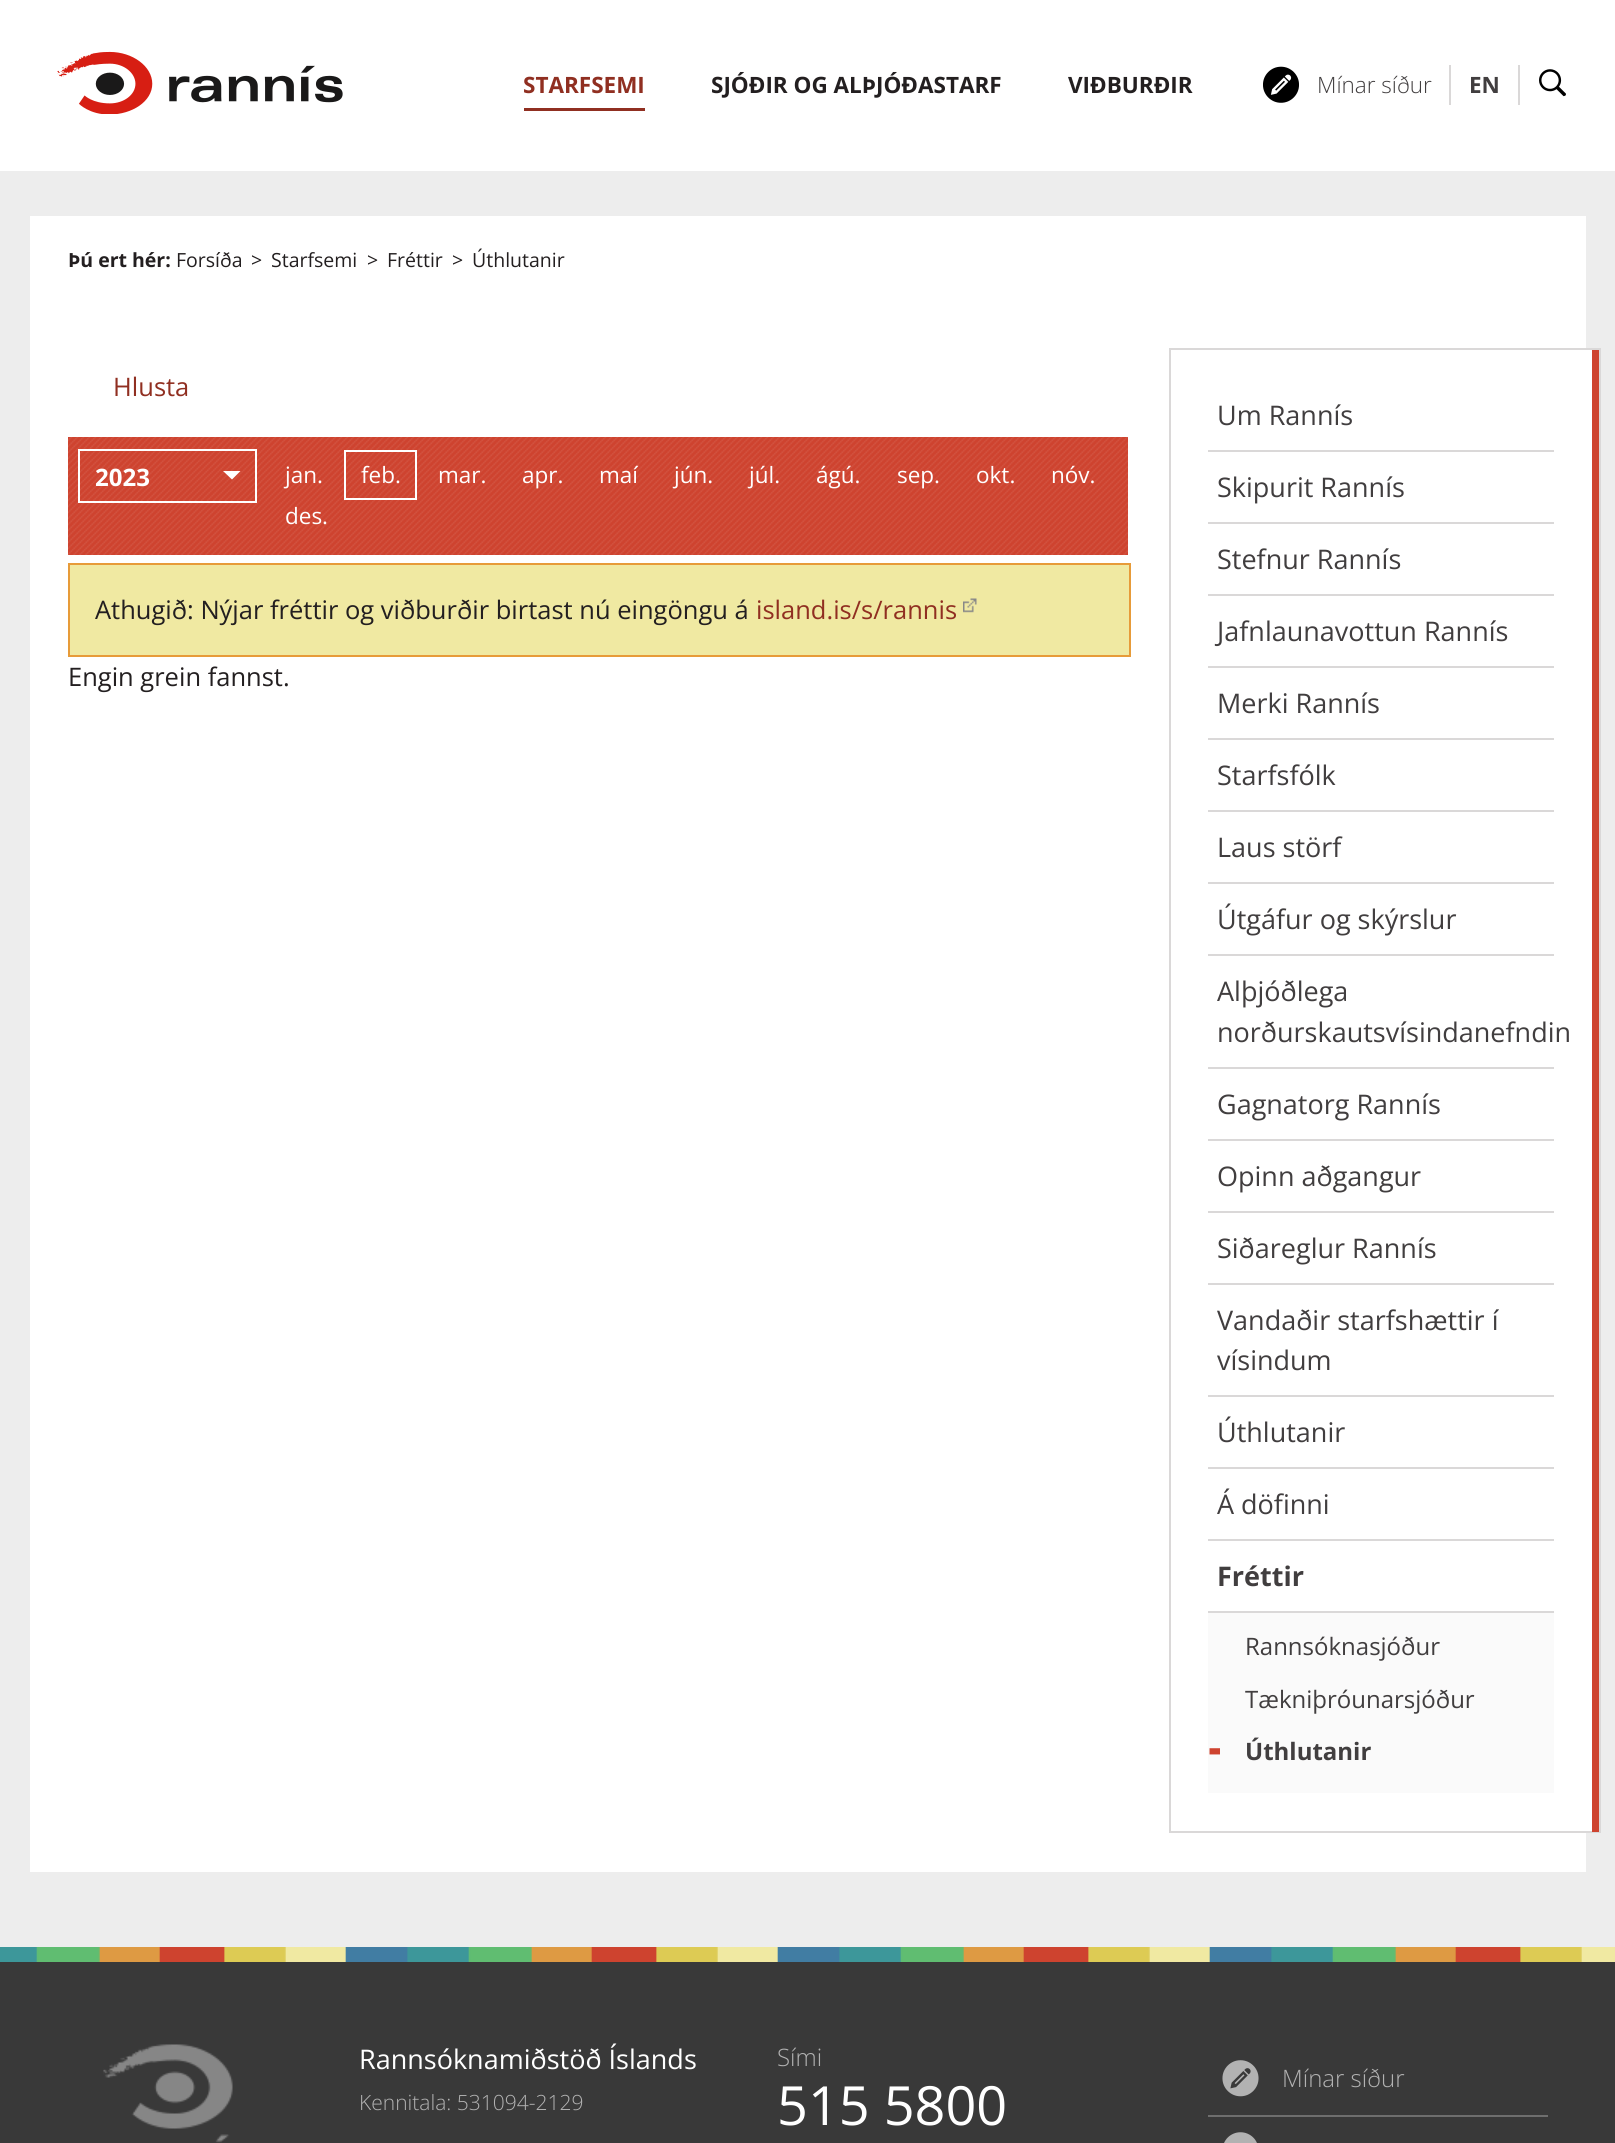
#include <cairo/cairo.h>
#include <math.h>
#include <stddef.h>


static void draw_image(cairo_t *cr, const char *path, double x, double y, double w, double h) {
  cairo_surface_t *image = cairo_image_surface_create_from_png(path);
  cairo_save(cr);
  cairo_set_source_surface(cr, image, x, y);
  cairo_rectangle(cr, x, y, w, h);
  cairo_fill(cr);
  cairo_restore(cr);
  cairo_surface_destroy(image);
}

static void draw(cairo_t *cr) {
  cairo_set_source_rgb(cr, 237 / 255.0, 237 / 255.0, 237 / 255.0);
  cairo_paint(cr);
  cairo_set_source_rgb(cr, 1, 1, 1);
  cairo_rectangle(cr, 0, 0, 1615, 171);
  cairo_fill(cr);
  draw_image(cr, "images/1.png", 57, 51, 286, 63);
  cairo_set_source_rgb(cr, 144 / 255.0, 47 / 255.0, 33 / 255.0);
  cairo_rectangle(cr, 524, 108, 121, 3);
  cairo_fill(cr);
  draw_image(cr, "images/2.png", 1263, 66, 36, 37);
  cairo_set_source_rgb(cr, 218 / 255.0, 216 / 255.0, 216 / 255.0);
  cairo_rectangle(cr, 1449, 65, 2, 40);
  cairo_fill(cr);
  cairo_rectangle(cr, 1518, 65, 2, 40);
  cairo_fill(cr);
  draw_image(cr, "images/3.png", 1539, 69, 27, 28);
  cairo_set_source_rgb(cr, 1, 1, 1);
  cairo_rectangle(cr, 1586, 350, 6, 1481);
  cairo_fill(cr);
  cairo_rectangle(cr, 30, 216, 1556, 1656);
  cairo_fill(cr);
  cairo_rectangle(cr, 1170, 349, 430, 1483);
  cairo_set_source_rgb(cr, 218 / 255.0, 216 / 255.0, 216 / 255.0);
  cairo_stroke(cr);
  cairo_set_source_rgb(cr, 206 / 255.0, 67 / 255.0, 47 / 255.0);
  cairo_rectangle(cr, 1592, 350, 7, 1482);
  cairo_fill(cr);
  cairo_set_source_rgb(cr, 218 / 255.0, 216 / 255.0, 216 / 255.0);
  cairo_rectangle(cr, 1208, 450, 346, 2);
  cairo_fill(cr);
  cairo_rectangle(cr, 1208, 522, 346, 2);
  cairo_fill(cr);
  cairo_rectangle(cr, 1208, 594, 346, 2);
  cairo_fill(cr);
  cairo_rectangle(cr, 1208, 666, 346, 2);
  cairo_fill(cr);
  cairo_rectangle(cr, 1208, 738, 346, 2);
  cairo_fill(cr);
  cairo_rectangle(cr, 1208, 810, 346, 2);
  cairo_fill(cr);
  cairo_rectangle(cr, 1208, 882, 346, 2);
  cairo_fill(cr);
  cairo_rectangle(cr, 1208, 954, 346, 2);
  cairo_fill(cr);
  cairo_rectangle(cr, 1208, 1067, 346, 2);
  cairo_fill(cr);
  cairo_rectangle(cr, 1208, 1139, 346, 2);
  cairo_fill(cr);
  cairo_rectangle(cr, 1208, 1211, 346, 2);
  cairo_fill(cr);
  cairo_rectangle(cr, 1208, 1283, 346, 2);
  cairo_fill(cr);
  cairo_rectangle(cr, 1208, 1395, 346, 2);
  cairo_fill(cr);
  cairo_rectangle(cr, 1208, 1467, 346, 2);
  cairo_fill(cr);
  cairo_rectangle(cr, 1208, 1539, 346, 2);
  cairo_fill(cr);
  cairo_rectangle(cr, 1208, 1611, 346, 2);
  cairo_fill(cr);
  cairo_set_source_rgb(cr, 250 / 255.0, 250 / 255.0, 250 / 255.0);
  cairo_rectangle(cr, 1208, 1613, 346, 180);
  cairo_fill(cr);
  cairo_set_source_rgb(cr, 206 / 255.0, 67 / 255.0, 47 / 255.0);
  cairo_rectangle(cr, 68, 437, 1060, 118);
  cairo_fill(cr);
  draw_image(cr, "images/5.png", 68, 437, 1060, 118);
  cairo_rectangle(cr, 80, 451, 175, 50);
  cairo_fill(cr);
  draw_image(cr, "images/4.png", 79, 448, 176, 53);
  cairo_rectangle(cr, 79, 450, 177, 52);
  cairo_set_source_rgb(cr, 1, 1, 1);
  cairo_stroke(cr);
  cairo_new_path(cr);
  cairo_move_to(cr, 232, 479.5);
  cairo_line_to(cr, 223, 471);
  cairo_line_to(cr, 240.5, 471);
  cairo_close_path(cr);
  cairo_fill(cr);
  cairo_rectangle(cr, 345, 451, 71, 48);
  cairo_stroke(cr);
  cairo_set_source_rgb(cr, 240 / 255.0, 233 / 255.0, 162 / 255.0);
  cairo_rectangle(cr, 69, 564, 1061, 92);
  cairo_fill_preserve(cr);
  cairo_set_source_rgb(cr, 231 / 255.0, 155 / 255.0, 57 / 255.0);
  cairo_stroke(cr);
  draw_image(cr, "images/6.png", 963, 598, 14, 15);
  cairo_set_source_rgb(cr, 57 / 255.0, 57 / 255.0, 57 / 255.0);
  cairo_rectangle(cr, 0, 1962, 1615, 181);
  cairo_fill(cr);
  draw_image(cr, "images/7.png", 0, 1947, 1615, 15);
  draw_image(cr, "images/8.png", 103, 2044, 130, 99);
  cairo_set_source_rgb(cr, 110 / 255.0, 110 / 255.0, 110 / 255.0);
  cairo_rectangle(cr, 1208, 2115, 340, 2);
  cairo_fill(cr);
  draw_image(cr, "images/9.png", 1222, 2060, 37, 37);
  draw_image(cr, "images/10.png", 1224, 2132, 33, 11);
  cairo_select_font_face(cr, "Open Sans", CAIRO_FONT_SLANT_NORMAL, CAIRO_FONT_WEIGHT_BOLD);
  cairo_set_font_size(cr, 22.5);
  cairo_set_source_rgb(cr, 144 / 255.0, 47 / 255.0, 33 / 255.0);
  cairo_move_to(cr, 523, 93);
  cairo_show_text(cr, "STARFSEMI");
  cairo_set_source_rgb(cr, 35 / 255.0, 31 / 255.0, 32 / 255.0);
  cairo_move_to(cr, 711, 93);
  cairo_show_text(cr, "SJÓÐIR OG ALÞJÓÐASTARF");
  cairo_move_to(cr, 1068, 93);
  cairo_show_text(cr, "VIÐBURÐIR");
  cairo_select_font_face(cr, "Open Sans Light", CAIRO_FONT_SLANT_NORMAL, CAIRO_FONT_WEIGHT_NORMAL);
  cairo_set_source_rgb(cr, 65 / 255.0, 62 / 255.0, 63 / 255.0);
  cairo_move_to(cr, 1317, 93);
  cairo_show_text(cr, "Mínar síður");
  cairo_select_font_face(cr, "Open Sans", CAIRO_FONT_SLANT_NORMAL, CAIRO_FONT_WEIGHT_BOLD);
  cairo_move_to(cr, 1469, 93);
  cairo_show_text(cr, "EN");
  cairo_set_font_size(cr, 19.5);
  cairo_set_source_rgb(cr, 35 / 255.0, 31 / 255.0, 32 / 255.0);
  cairo_move_to(cr, 68, 267);
  cairo_show_text(cr, "Þú ert hér:");
  cairo_select_font_face(cr, "Open Sans", CAIRO_FONT_SLANT_NORMAL, CAIRO_FONT_WEIGHT_NORMAL);
  cairo_move_to(cr, 176, 267);
  cairo_show_text(cr, "Forsíða");
  cairo_move_to(cr, 251, 267);
  cairo_show_text(cr, ">");
  cairo_move_to(cr, 271, 267);
  cairo_show_text(cr, "Starfsemi");
  cairo_move_to(cr, 367, 267);
  cairo_show_text(cr, ">");
  cairo_move_to(cr, 387, 267);
  cairo_show_text(cr, "Fréttir");
  cairo_move_to(cr, 452, 267);
  cairo_show_text(cr, ">");
  cairo_move_to(cr, 472, 267);
  cairo_show_text(cr, "Úthlutanir");
  cairo_set_font_size(cr, 27);
  cairo_set_source_rgb(cr, 65 / 255.0, 62 / 255.0, 63 / 255.0);
  cairo_move_to(cr, 1217, 425);
  cairo_show_text(cr, "Um Rannís");
  cairo_move_to(cr, 1217, 497);
  cairo_show_text(cr, "Skipurit Rannís");
  cairo_move_to(cr, 1217, 569);
  cairo_show_text(cr, "Stefnur Rannís");
  cairo_move_to(cr, 1217, 641);
  cairo_show_text(cr, "Jafnlaunavottun Rannís");
  cairo_move_to(cr, 1217, 713);
  cairo_show_text(cr, "Merki Rannís");
  cairo_move_to(cr, 1217, 785);
  cairo_show_text(cr, "Starfsfólk");
  cairo_move_to(cr, 1217, 857);
  cairo_show_text(cr, "Laus störf");
  cairo_move_to(cr, 1217, 929);
  cairo_show_text(cr, "Útgáfur og skýrslur");
  cairo_move_to(cr, 1217, 1001);
  cairo_show_text(cr, "Alþjóðlega");
  cairo_move_to(cr, 1217, 1042);
  cairo_show_text(cr, "norðurskautsvísindanefndin");
  cairo_move_to(cr, 1217, 1114);
  cairo_show_text(cr, "Gagnatorg Rannís");
  cairo_move_to(cr, 1217, 1186);
  cairo_show_text(cr, "Opinn aðgangur");
  cairo_move_to(cr, 1217, 1258);
  cairo_show_text(cr, "Siðareglur Rannís");
  cairo_move_to(cr, 1217, 1330);
  cairo_show_text(cr, "Vandaðir starfshættir í");
  cairo_move_to(cr, 1217, 1370);
  cairo_show_text(cr, "vísindum");
  cairo_move_to(cr, 1217, 1442);
  cairo_show_text(cr, "Úthlutanir");
  cairo_move_to(cr, 1217, 1514);
  cairo_show_text(cr, "Á döfinni");
  cairo_select_font_face(cr, "Open Sans", CAIRO_FONT_SLANT_NORMAL, CAIRO_FONT_WEIGHT_BOLD);
  cairo_move_to(cr, 1217, 1586);
  cairo_show_text(cr, "Fréttir");
  cairo_select_font_face(cr, "Open Sans", CAIRO_FONT_SLANT_NORMAL, CAIRO_FONT_WEIGHT_NORMAL);
  cairo_set_font_size(cr, 24);
  cairo_move_to(cr, 1245, 1655);
  cairo_show_text(cr, "Rannsóknasjóður");
  cairo_move_to(cr, 1245, 1708);
  cairo_show_text(cr, "Tækniþróunarsjóður");
  cairo_save(cr);
  cairo_rectangle(cr, 1208, 1719, 12, 51);
  cairo_clip(cr);
  cairo_select_font_face(cr, "Open Sans", CAIRO_FONT_SLANT_NORMAL, CAIRO_FONT_WEIGHT_BOLD);
  cairo_set_font_size(cr, 51);
  cairo_set_source_rgb(cr, 206 / 255.0, 67 / 255.0, 47 / 255.0);
  cairo_move_to(cr, 1208, 1765);
  cairo_show_text(cr, "-");
  cairo_restore(cr);
  cairo_select_font_face(cr, "Open Sans", CAIRO_FONT_SLANT_NORMAL, CAIRO_FONT_WEIGHT_BOLD);
  cairo_move_to(cr, 1245, 1760);
  cairo_show_text(cr, "Úthlutanir");
  cairo_select_font_face(cr, "Open Sans", CAIRO_FONT_SLANT_NORMAL, CAIRO_FONT_WEIGHT_NORMAL);
  cairo_set_font_size(cr, 25.5);
  cairo_set_source_rgb(cr, 144 / 255.0, 47 / 255.0, 33 / 255.0);
  cairo_move_to(cr, 113, 396);
  cairo_show_text(cr, "Hlusta");
  cairo_select_font_face(cr, "Open Sans", CAIRO_FONT_SLANT_NORMAL, CAIRO_FONT_WEIGHT_BOLD);
  cairo_set_font_size(cr, 24);
  cairo_set_source_rgb(cr, 1, 1, 1);
  cairo_move_to(cr, 95, 486);
  cairo_show_text(cr, "2023");
  cairo_select_font_face(cr, "Open Sans", CAIRO_FONT_SLANT_NORMAL, CAIRO_FONT_WEIGHT_NORMAL);
  cairo_set_font_size(cr, 22.5);
  cairo_move_to(cr, 285, 483);
  cairo_show_text(cr, "jan.");
  cairo_move_to(cr, 361, 483);
  cairo_show_text(cr, "feb.");
  cairo_move_to(cr, 438, 483);
  cairo_show_text(cr, "mar.");
  cairo_move_to(cr, 522, 483);
  cairo_show_text(cr, "apr.");
  cairo_move_to(cr, 599, 483);
  cairo_show_text(cr, "maí");
  cairo_move_to(cr, 674, 483);
  cairo_show_text(cr, "jún.");
  cairo_move_to(cr, 749, 483);
  cairo_show_text(cr, "júl.");
  cairo_move_to(cr, 816, 483);
  cairo_show_text(cr, "ágú.");
  cairo_move_to(cr, 897, 483);
  cairo_show_text(cr, "sep.");
  cairo_move_to(cr, 976, 483);
  cairo_show_text(cr, "okt.");
  cairo_move_to(cr, 1051, 483);
  cairo_show_text(cr, "nóv.");
  cairo_move_to(cr, 285, 524);
  cairo_show_text(cr, "des.");
  cairo_set_font_size(cr, 25.5);
  cairo_set_source_rgb(cr, 35 / 255.0, 31 / 255.0, 32 / 255.0);
  cairo_move_to(cr, 95, 619);
  cairo_show_text(cr, "Athugið: Nýjar fréttir og viðburðir birtast nú eingöngu á");
  cairo_set_source_rgb(cr, 144 / 255.0, 47 / 255.0, 33 / 255.0);
  cairo_move_to(cr, 756, 619);
  cairo_show_text(cr, "island.is/s/rannis");
  cairo_set_source_rgb(cr, 35 / 255.0, 31 / 255.0, 32 / 255.0);
  cairo_move_to(cr, 68, 686);
  cairo_show_text(cr, "Engin grein fannst.");
  cairo_set_font_size(cr, 27);
  cairo_set_source_rgb(cr, 1, 1, 1);
  cairo_move_to(cr, 359, 2069);
  cairo_show_text(cr, "Rannsóknamiðstöð Íslands");
  cairo_select_font_face(cr, "Open Sans Light", CAIRO_FONT_SLANT_NORMAL, CAIRO_FONT_WEIGHT_NORMAL);
  cairo_set_font_size(cr, 21);
  cairo_set_source_rgb(cr, 178 / 255.0, 178 / 255.0, 178 / 255.0);
  cairo_move_to(cr, 359, 2110);
  cairo_show_text(cr, "Kennitala: 531094-2129");
  cairo_set_font_size(cr, 24);
  cairo_move_to(cr, 777, 2066);
  cairo_show_text(cr, "Sími");
  cairo_select_font_face(cr, "Open Sans", CAIRO_FONT_SLANT_NORMAL, CAIRO_FONT_WEIGHT_NORMAL);
  cairo_set_font_size(cr, 54);
  cairo_set_source_rgb(cr, 1, 1, 1);
  cairo_move_to(cr, 777, 2125);
  cairo_show_text(cr, "515 5800");
  cairo_select_font_face(cr, "Open Sans Light", CAIRO_FONT_SLANT_NORMAL, CAIRO_FONT_WEIGHT_NORMAL);
  cairo_set_font_size(cr, 24);
  cairo_set_source_rgb(cr, 178 / 255.0, 178 / 255.0, 178 / 255.0);
  cairo_move_to(cr, 1282, 2087);
  cairo_show_text(cr, "Mínar síður");
}

int main(void) {
  cairo_surface_t *surface = cairo_image_surface_create(CAIRO_FORMAT_RGB24, 1615, 2143);
  cairo_t *cr = cairo_create(surface);
  cairo_font_options_t *options = cairo_font_options_create();
  cairo_font_options_set_hint_metrics(options, CAIRO_HINT_METRICS_OFF);
  cairo_font_options_set_hint_style(options, CAIRO_HINT_STYLE_NONE);
  cairo_set_font_options(cr, options);
  cairo_set_miter_limit(cr, 4);
  draw(cr);
  cairo_surface_write_to_png(surface, "out.png");
  cairo_font_options_destroy(options);
  cairo_destroy(cr);
  cairo_surface_destroy(surface);
  return 0;
}
